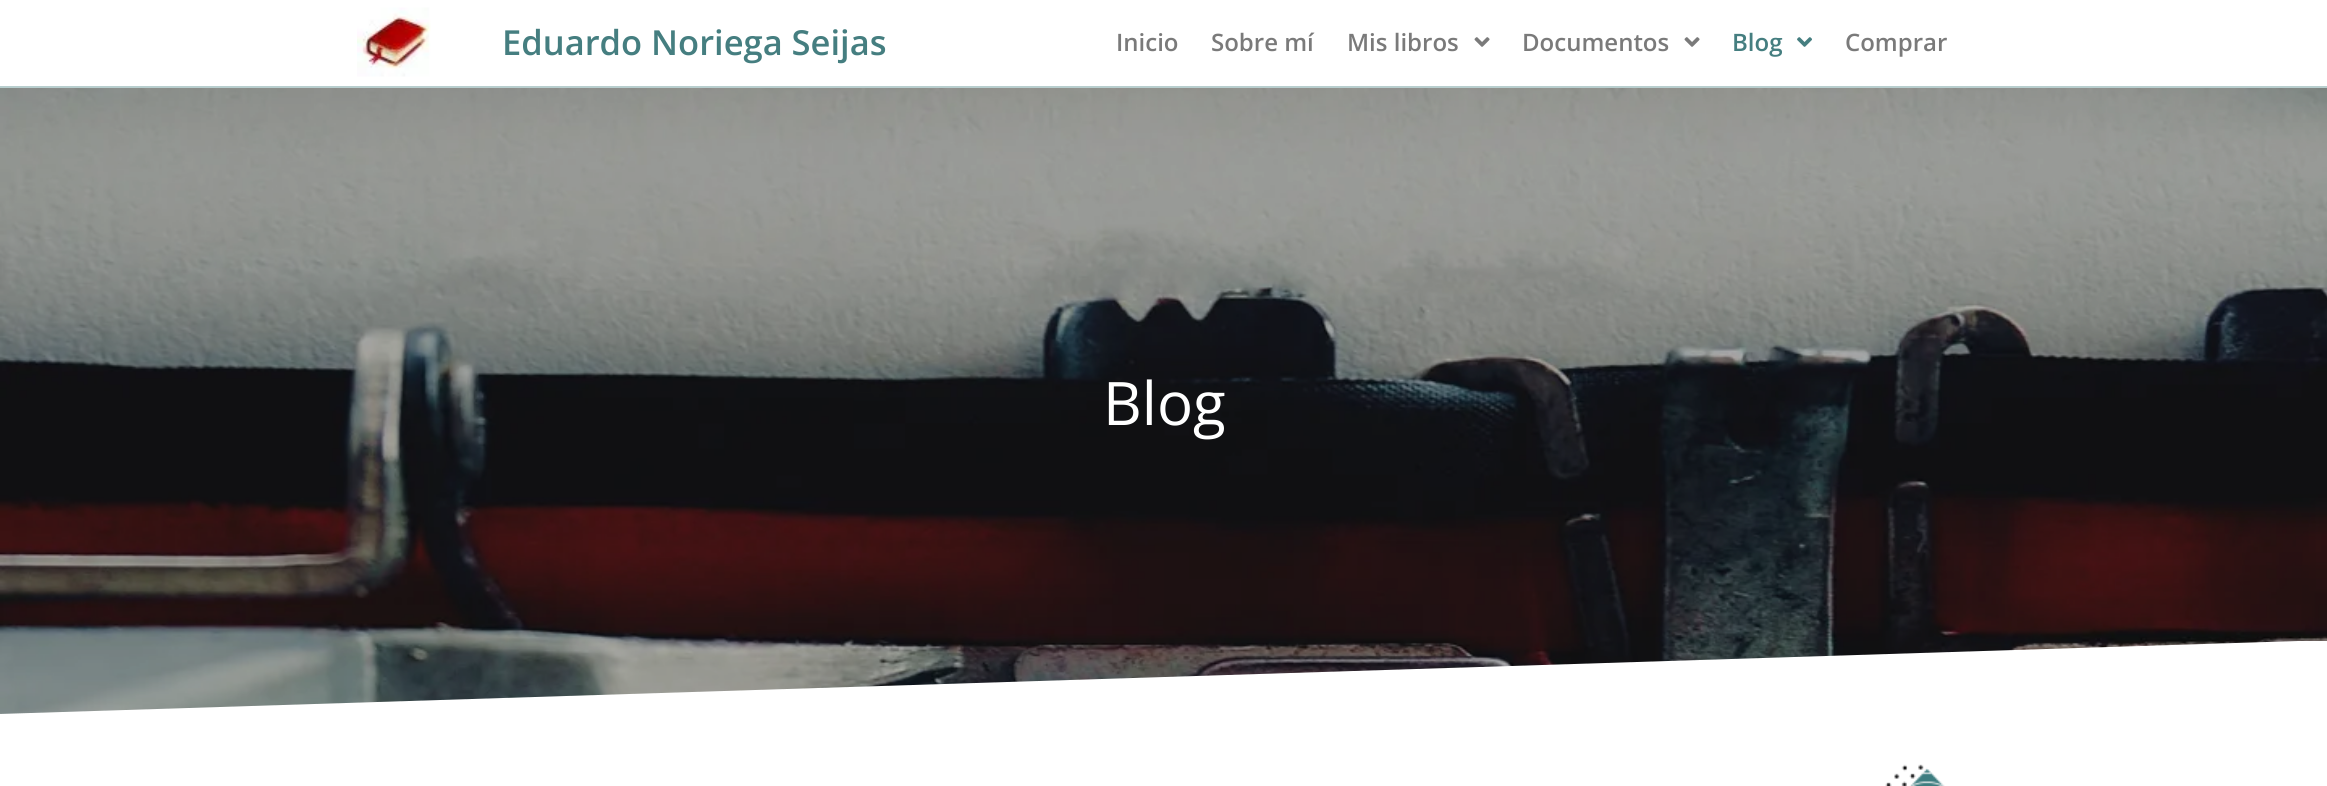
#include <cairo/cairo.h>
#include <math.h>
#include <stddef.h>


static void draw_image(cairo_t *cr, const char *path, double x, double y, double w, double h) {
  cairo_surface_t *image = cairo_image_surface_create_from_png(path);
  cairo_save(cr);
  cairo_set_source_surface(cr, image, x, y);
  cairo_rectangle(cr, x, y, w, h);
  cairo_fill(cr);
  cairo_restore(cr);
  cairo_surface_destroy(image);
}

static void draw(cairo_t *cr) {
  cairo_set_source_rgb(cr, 1, 1, 1);
  cairo_paint(cr);
  cairo_set_source_rgb(cr, 184 / 255.0, 206 / 255.0, 206 / 255.0);
  cairo_rectangle(cr, 0, 86, 2327, 2);
  cairo_fill(cr);
  draw_image(cr, "images/1.png", 357, 7, 74, 70);
  draw_image(cr, "images/2.png", 1474, 37, 16, 10);
  draw_image(cr, "images/2.png", 1684, 37, 16, 10);
  draw_image(cr, "images/3.png", 1797, 37, 15, 10);
  draw_image(cr, "images/4.png", 0, 88, 2327, 626);
  cairo_save(cr);
  cairo_rectangle(cr, 0, 641, 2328, 78);
  cairo_clip(cr);
  cairo_set_source_rgb(cr, 1, 1, 1);
  cairo_new_path(cr);
  cairo_move_to(cr, -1, 714);
  cairo_line_to(cr, -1, 718);
  cairo_line_to(cr, 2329, 718);
  cairo_line_to(cr, 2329, 640);
  cairo_close_path(cr);
  cairo_fill(cr);
  cairo_restore(cr);
  draw_image(cr, "images/5.png", 1885, 764, 60, 22);
  cairo_select_font_face(cr, "Open Sans SemiBold", CAIRO_FONT_SLANT_NORMAL, CAIRO_FONT_WEIGHT_NORMAL);
  cairo_set_font_size(cr, 34.5);
  cairo_set_source_rgb(cr, 69 / 255.0, 126 / 255.0, 128 / 255.0);
  cairo_move_to(cr, 502, 55);
  cairo_show_text(cr, "Eduardo Noriega Seijas");
  cairo_set_font_size(cr, 24);
  cairo_set_source_rgb(cr, 122 / 255.0, 122 / 255.0, 122 / 255.0);
  cairo_move_to(cr, 1116, 51);
  cairo_show_text(cr, "Inicio");
  cairo_move_to(cr, 1211, 51);
  cairo_show_text(cr, "Sobre mí");
  cairo_move_to(cr, 1347, 51);
  cairo_show_text(cr, "Mis libros");
  cairo_move_to(cr, 1522, 51);
  cairo_show_text(cr, "Documentos");
  cairo_set_source_rgb(cr, 69 / 255.0, 126 / 255.0, 128 / 255.0);
  cairo_move_to(cr, 1732, 51);
  cairo_show_text(cr, "Blog");
  cairo_set_source_rgb(cr, 122 / 255.0, 122 / 255.0, 122 / 255.0);
  cairo_move_to(cr, 1845, 51);
  cairo_show_text(cr, "Comprar");
  cairo_select_font_face(cr, "Open Sans", CAIRO_FONT_SLANT_NORMAL, CAIRO_FONT_WEIGHT_NORMAL);
  cairo_set_font_size(cr, 60);
  cairo_set_source_rgb(cr, 1, 1, 1);
  cairo_move_to(cr, 1103, 425);
  cairo_show_text(cr, "Blog");
}

int main(void) {
  cairo_surface_t *surface = cairo_image_surface_create(CAIRO_FORMAT_RGB24, 2327, 786);
  cairo_t *cr = cairo_create(surface);
  cairo_font_options_t *options = cairo_font_options_create();
  cairo_font_options_set_hint_metrics(options, CAIRO_HINT_METRICS_OFF);
  cairo_font_options_set_hint_style(options, CAIRO_HINT_STYLE_NONE);
  cairo_set_font_options(cr, options);
  cairo_set_miter_limit(cr, 4);
  draw(cr);
  cairo_surface_write_to_png(surface, "out.png");
  cairo_font_options_destroy(options);
  cairo_destroy(cr);
  cairo_surface_destroy(surface);
  return 0;
}
